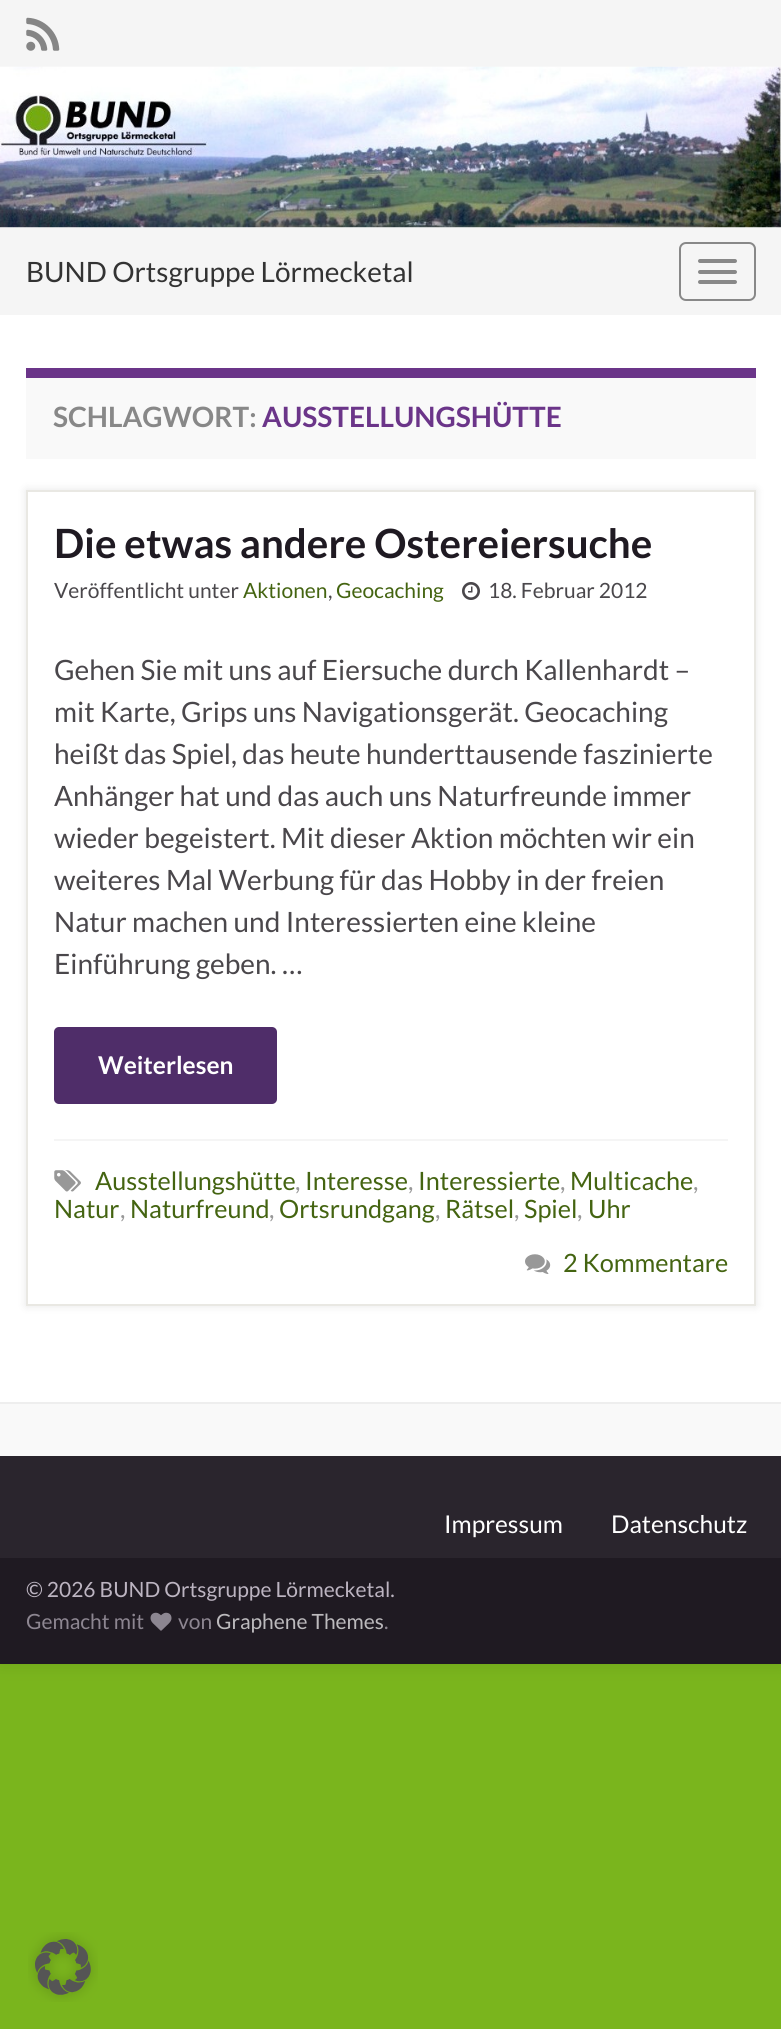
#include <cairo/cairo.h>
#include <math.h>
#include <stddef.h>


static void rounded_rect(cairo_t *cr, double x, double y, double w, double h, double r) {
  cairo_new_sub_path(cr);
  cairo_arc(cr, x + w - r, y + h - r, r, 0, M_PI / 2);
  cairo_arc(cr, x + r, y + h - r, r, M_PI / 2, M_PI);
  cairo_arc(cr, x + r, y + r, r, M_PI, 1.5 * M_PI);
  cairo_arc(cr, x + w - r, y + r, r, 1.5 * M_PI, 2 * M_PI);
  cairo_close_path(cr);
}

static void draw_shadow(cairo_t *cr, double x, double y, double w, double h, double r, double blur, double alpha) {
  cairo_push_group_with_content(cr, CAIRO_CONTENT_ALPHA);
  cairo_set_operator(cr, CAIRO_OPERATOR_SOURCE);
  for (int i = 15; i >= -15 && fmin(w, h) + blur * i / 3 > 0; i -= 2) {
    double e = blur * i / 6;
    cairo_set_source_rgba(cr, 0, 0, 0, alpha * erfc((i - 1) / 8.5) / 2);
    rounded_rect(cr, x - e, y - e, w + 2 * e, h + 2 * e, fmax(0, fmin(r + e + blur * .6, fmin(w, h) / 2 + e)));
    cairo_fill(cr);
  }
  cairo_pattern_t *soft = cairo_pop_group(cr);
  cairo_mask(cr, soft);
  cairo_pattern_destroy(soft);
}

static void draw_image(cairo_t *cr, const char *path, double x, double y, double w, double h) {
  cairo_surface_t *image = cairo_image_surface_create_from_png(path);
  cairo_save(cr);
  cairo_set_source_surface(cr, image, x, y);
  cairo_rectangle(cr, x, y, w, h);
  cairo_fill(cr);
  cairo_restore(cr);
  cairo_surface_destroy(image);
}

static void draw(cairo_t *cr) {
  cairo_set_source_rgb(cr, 122 / 255.0, 181 / 255.0, 29 / 255.0);
  cairo_paint(cr);
  cairo_set_source_rgb(cr, 0, 0, 0);
  draw_shadow(cr, 0, 0, 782, 1664, 0, 9, 0.1);
  cairo_set_source_rgb(cr, 245 / 255.0, 245 / 255.0, 245 / 255.0);
  cairo_rectangle(cr, 0, 0, 781, 67);
  cairo_fill(cr);
  draw_image(cr, "images/1.png", 26, 17, 34, 34);
  cairo_set_source_rgb(cr, 1, 1, 1);
  cairo_rectangle(cr, 0, 227, 781, 1);
  cairo_fill(cr);
  draw_image(cr, "images/2.png", 0, 66, 781, 162);
  cairo_set_source_rgb(cr, 245 / 255.0, 245 / 255.0, 245 / 255.0);
  cairo_rectangle(cr, 0, 228, 781, 87);
  cairo_fill(cr);
  rounded_rect(cr, 680, 243, 75, 57, 6);
  cairo_set_source_rgb(cr, 136 / 255.0, 136 / 255.0, 136 / 255.0);
  cairo_stroke(cr);
  rounded_rect(cr, 698, 259, 39, 4, 2);
  cairo_fill(cr);
  rounded_rect(cr, 698, 270, 39, 4, 2);
  cairo_fill(cr);
  rounded_rect(cr, 698, 280, 39, 4, 2);
  cairo_fill(cr);
  cairo_set_source_rgb(cr, 1, 1, 1);
  cairo_rectangle(cr, 0, 315, 781, 1087);
  cairo_fill(cr);
  cairo_set_source_rgb(cr, 249 / 255.0, 249 / 255.0, 249 / 255.0);
  cairo_rectangle(cr, 26, 378, 730, 81);
  cairo_fill(cr);
  cairo_set_source_rgb(cr, 107 / 255.0, 53 / 255.0, 137 / 255.0);
  cairo_rectangle(cr, 26, 368, 730, 10);
  cairo_fill(cr);
  cairo_set_source_rgb(cr, 0, 0, 0);
  draw_shadow(cr, 26, 490, 730, 816, 0, 4.5, 0.1);
  cairo_set_source_rgb(cr, 1, 1, 1);
  cairo_rectangle(cr, 27, 491, 728, 814);
  cairo_fill_preserve(cr);
  cairo_set_source_rgb(cr, 233 / 255.0, 232 / 255.0, 227 / 255.0);
  cairo_stroke(cr);
  draw_image(cr, "images/3.png", 462, 582, 18, 18);
  cairo_set_source_rgb(cr, 79 / 255.0, 45 / 255.0, 105 / 255.0);
  rounded_rect(cr, 54, 1027, 223, 77, 5);
  cairo_fill(cr);
  cairo_set_source_rgb(cr, 245 / 255.0, 245 / 255.0, 245 / 255.0);
  cairo_rectangle(cr, 54, 1139, 674, 2);
  cairo_fill(cr);
  draw_image(cr, "images/4.png", 54, 1170, 27, 22);
  draw_image(cr, "images/5.png", 525, 1254, 26, 20);
  cairo_set_source_rgb(cr, 249 / 255.0, 249 / 255.0, 249 / 255.0);
  cairo_rectangle(cr, 0, 1404, 781, 52);
  cairo_fill(cr);
  cairo_set_source_rgb(cr, 238 / 255.0, 238 / 255.0, 238 / 255.0);
  cairo_rectangle(cr, 0, 1402, 781, 2);
  cairo_fill(cr);
  cairo_set_source_rgb(cr, 31 / 255.0, 26 / 255.0, 34 / 255.0);
  cairo_rectangle(cr, 0, 1558, 781, 106);
  cairo_fill(cr);
  cairo_set_source_rgb(cr, 42 / 255.0, 37 / 255.0, 45 / 255.0);
  cairo_rectangle(cr, 0, 1456, 781, 102);
  cairo_fill(cr);
  draw_image(cr, "images/6.png", 150, 1612, 22, 19);
  draw_image(cr, "images/7.png", 28, 1932, 70, 70);
  cairo_select_font_face(cr, "Lato", CAIRO_FONT_SLANT_NORMAL, CAIRO_FONT_WEIGHT_NORMAL);
  cairo_set_font_size(cr, 28);
  cairo_set_source_rgb(cr, 51 / 255.0, 51 / 255.0, 51 / 255.0);
  cairo_move_to(cr, 26, 282);
  cairo_show_text(cr, "BUND Ortsgruppe Lörmecketal");
  cairo_select_font_face(cr, "Lato", CAIRO_FONT_SLANT_NORMAL, CAIRO_FONT_WEIGHT_BOLD);
  cairo_set_source_rgb(cr, 136 / 255.0, 136 / 255.0, 136 / 255.0);
  cairo_move_to(cr, 53, 427);
  cairo_show_text(cr, "SCHLAGWORT:");
  cairo_set_source_rgb(cr, 107 / 255.0, 53 / 255.0, 137 / 255.0);
  cairo_move_to(cr, 262, 427);
  cairo_show_text(cr, "AUSSTELLUNGSHÜTTE");
  cairo_set_font_size(cr, 40.3);
  cairo_set_source_rgb(cr, 31 / 255.0, 26 / 255.0, 34 / 255.0);
  cairo_move_to(cr, 54, 558);
  cairo_show_text(cr, "Die etwas andere Ostereiersuche");
  cairo_select_font_face(cr, "Lato", CAIRO_FONT_SLANT_NORMAL, CAIRO_FONT_WEIGHT_NORMAL);
  cairo_set_font_size(cr, 21);
  cairo_set_source_rgb(cr, 74 / 255.0, 71 / 255.0, 75 / 255.0);
  cairo_move_to(cr, 54, 598);
  cairo_show_text(cr, "Veröffentlicht unter");
  cairo_set_source_rgb(cr, 68 / 255.0, 100 / 255.0, 17 / 255.0);
  cairo_move_to(cr, 243, 598);
  cairo_show_text(cr, "Aktionen");
  cairo_set_source_rgb(cr, 74 / 255.0, 71 / 255.0, 75 / 255.0);
  cairo_move_to(cr, 328, 598);
  cairo_show_text(cr, ",");
  cairo_set_source_rgb(cr, 68 / 255.0, 100 / 255.0, 17 / 255.0);
  cairo_move_to(cr, 336, 598);
  cairo_show_text(cr, "Geocaching");
  cairo_set_source_rgb(cr, 74 / 255.0, 71 / 255.0, 75 / 255.0);
  cairo_move_to(cr, 488, 598);
  cairo_show_text(cr, "18. Februar 2012");
  cairo_set_font_size(cr, 28);
  cairo_move_to(cr, 54, 680);
  cairo_show_text(cr, "Gehen Sie mit uns auf Eiersuche durch Kallenhardt –");
  cairo_move_to(cr, 54, 722);
  cairo_show_text(cr, "mit Karte, Grips uns Navigationsgerät. Geocaching");
  cairo_move_to(cr, 54, 764);
  cairo_show_text(cr, "heißt das Spiel, das heute hunderttausende faszinierte");
  cairo_move_to(cr, 54, 806);
  cairo_show_text(cr, "Anhänger hat und das auch uns Naturfreunde immer");
  cairo_move_to(cr, 54, 848);
  cairo_show_text(cr, "wieder begeistert. Mit dieser Aktion möchten wir ein");
  cairo_move_to(cr, 54, 890);
  cairo_show_text(cr, "weiteres Mal Werbung für das Hobby in der freien");
  cairo_move_to(cr, 54, 932);
  cairo_show_text(cr, "Natur machen und Interessierten eine kleine");
  cairo_move_to(cr, 54, 974);
  cairo_show_text(cr, "Einführung geben. …");
  cairo_select_font_face(cr, "Lato", CAIRO_FONT_SLANT_NORMAL, CAIRO_FONT_WEIGHT_BOLD);
  cairo_set_font_size(cr, 24.5);
  cairo_set_source_rgb(cr, 1, 1, 1);
  cairo_move_to(cr, 98, 1074);
  cairo_show_text(cr, "Weiterlesen");
  cairo_select_font_face(cr, "Lato", CAIRO_FONT_SLANT_NORMAL, CAIRO_FONT_WEIGHT_NORMAL);
  cairo_set_font_size(cr, 25.25);
  cairo_set_source_rgb(cr, 68 / 255.0, 100 / 255.0, 17 / 255.0);
  cairo_move_to(cr, 95, 1190);
  cairo_show_text(cr, "Ausstellungshütte");
  cairo_set_source_rgb(cr, 152 / 255.0, 152 / 255.0, 152 / 255.0);
  cairo_move_to(cr, 295, 1190);
  cairo_show_text(cr, ",");
  cairo_set_source_rgb(cr, 68 / 255.0, 100 / 255.0, 17 / 255.0);
  cairo_move_to(cr, 305, 1190);
  cairo_show_text(cr, "Interesse");
  cairo_set_source_rgb(cr, 152 / 255.0, 152 / 255.0, 152 / 255.0);
  cairo_move_to(cr, 408, 1190);
  cairo_show_text(cr, ",");
  cairo_set_source_rgb(cr, 68 / 255.0, 100 / 255.0, 17 / 255.0);
  cairo_move_to(cr, 418, 1190);
  cairo_show_text(cr, "Interessierte");
  cairo_set_source_rgb(cr, 152 / 255.0, 152 / 255.0, 152 / 255.0);
  cairo_move_to(cr, 560, 1190);
  cairo_show_text(cr, ",");
  cairo_set_source_rgb(cr, 68 / 255.0, 100 / 255.0, 17 / 255.0);
  cairo_move_to(cr, 570, 1190);
  cairo_show_text(cr, "Multicache");
  cairo_set_source_rgb(cr, 152 / 255.0, 152 / 255.0, 152 / 255.0);
  cairo_move_to(cr, 693, 1190);
  cairo_show_text(cr, ",");
  cairo_set_source_rgb(cr, 68 / 255.0, 100 / 255.0, 17 / 255.0);
  cairo_move_to(cr, 54, 1218);
  cairo_show_text(cr, "Natur");
  cairo_set_source_rgb(cr, 152 / 255.0, 152 / 255.0, 152 / 255.0);
  cairo_move_to(cr, 120, 1218);
  cairo_show_text(cr, ",");
  cairo_set_source_rgb(cr, 68 / 255.0, 100 / 255.0, 17 / 255.0);
  cairo_move_to(cr, 130, 1218);
  cairo_show_text(cr, "Naturfreund");
  cairo_set_source_rgb(cr, 152 / 255.0, 152 / 255.0, 152 / 255.0);
  cairo_move_to(cr, 269, 1218);
  cairo_show_text(cr, ",");
  cairo_set_source_rgb(cr, 68 / 255.0, 100 / 255.0, 17 / 255.0);
  cairo_move_to(cr, 279, 1218);
  cairo_show_text(cr, "Ortsrundgang");
  cairo_set_source_rgb(cr, 152 / 255.0, 152 / 255.0, 152 / 255.0);
  cairo_move_to(cr, 435, 1218);
  cairo_show_text(cr, ",");
  cairo_set_source_rgb(cr, 68 / 255.0, 100 / 255.0, 17 / 255.0);
  cairo_move_to(cr, 445, 1218);
  cairo_show_text(cr, "Rätsel");
  cairo_set_source_rgb(cr, 152 / 255.0, 152 / 255.0, 152 / 255.0);
  cairo_move_to(cr, 514, 1218);
  cairo_show_text(cr, ",");
  cairo_set_source_rgb(cr, 68 / 255.0, 100 / 255.0, 17 / 255.0);
  cairo_move_to(cr, 524, 1218);
  cairo_show_text(cr, "Spiel");
  cairo_set_source_rgb(cr, 152 / 255.0, 152 / 255.0, 152 / 255.0);
  cairo_move_to(cr, 577, 1218);
  cairo_show_text(cr, ",");
  cairo_set_source_rgb(cr, 68 / 255.0, 100 / 255.0, 17 / 255.0);
  cairo_move_to(cr, 588, 1218);
  cairo_show_text(cr, "Uhr");
  cairo_move_to(cr, 563, 1272);
  cairo_show_text(cr, "2 Kommentare");
  cairo_set_font_size(cr, 24.5);
  cairo_set_source_rgb(cr, 1, 1, 1);
  cairo_move_to(cr, 444, 1533);
  cairo_show_text(cr, "Impressum");
  cairo_move_to(cr, 611, 1533);
  cairo_show_text(cr, "Datenschutz");
  cairo_set_font_size(cr, 21);
  cairo_set_source_rgb(cr, 188 / 255.0, 180 / 255.0, 193 / 255.0);
  cairo_move_to(cr, 26, 1597);
  cairo_show_text(cr, "© 2026 BUND Ortsgruppe Lörmecketal.");
  cairo_set_source_rgb(cr, 141 / 255.0, 134 / 255.0, 145 / 255.0);
  cairo_move_to(cr, 26, 1629);
  cairo_show_text(cr, "Gemacht mit");
  cairo_move_to(cr, 178, 1629);
  cairo_show_text(cr, "von");
  cairo_set_source_rgb(cr, 188 / 255.0, 186 / 255.0, 189 / 255.0);
  cairo_move_to(cr, 216, 1629);
  cairo_show_text(cr, "Graphene Themes");
  cairo_set_source_rgb(cr, 141 / 255.0, 134 / 255.0, 145 / 255.0);
  cairo_move_to(cr, 384, 1629);
  cairo_show_text(cr, ".");
}

int main(void) {
  cairo_surface_t *surface = cairo_image_surface_create(CAIRO_FORMAT_RGB24, 781, 2029);
  cairo_t *cr = cairo_create(surface);
  cairo_font_options_t *options = cairo_font_options_create();
  cairo_font_options_set_hint_metrics(options, CAIRO_HINT_METRICS_OFF);
  cairo_font_options_set_hint_style(options, CAIRO_HINT_STYLE_NONE);
  cairo_set_font_options(cr, options);
  cairo_set_miter_limit(cr, 4);
  draw(cr);
  cairo_surface_write_to_png(surface, "out.png");
  cairo_font_options_destroy(options);
  cairo_destroy(cr);
  cairo_surface_destroy(surface);
  return 0;
}
